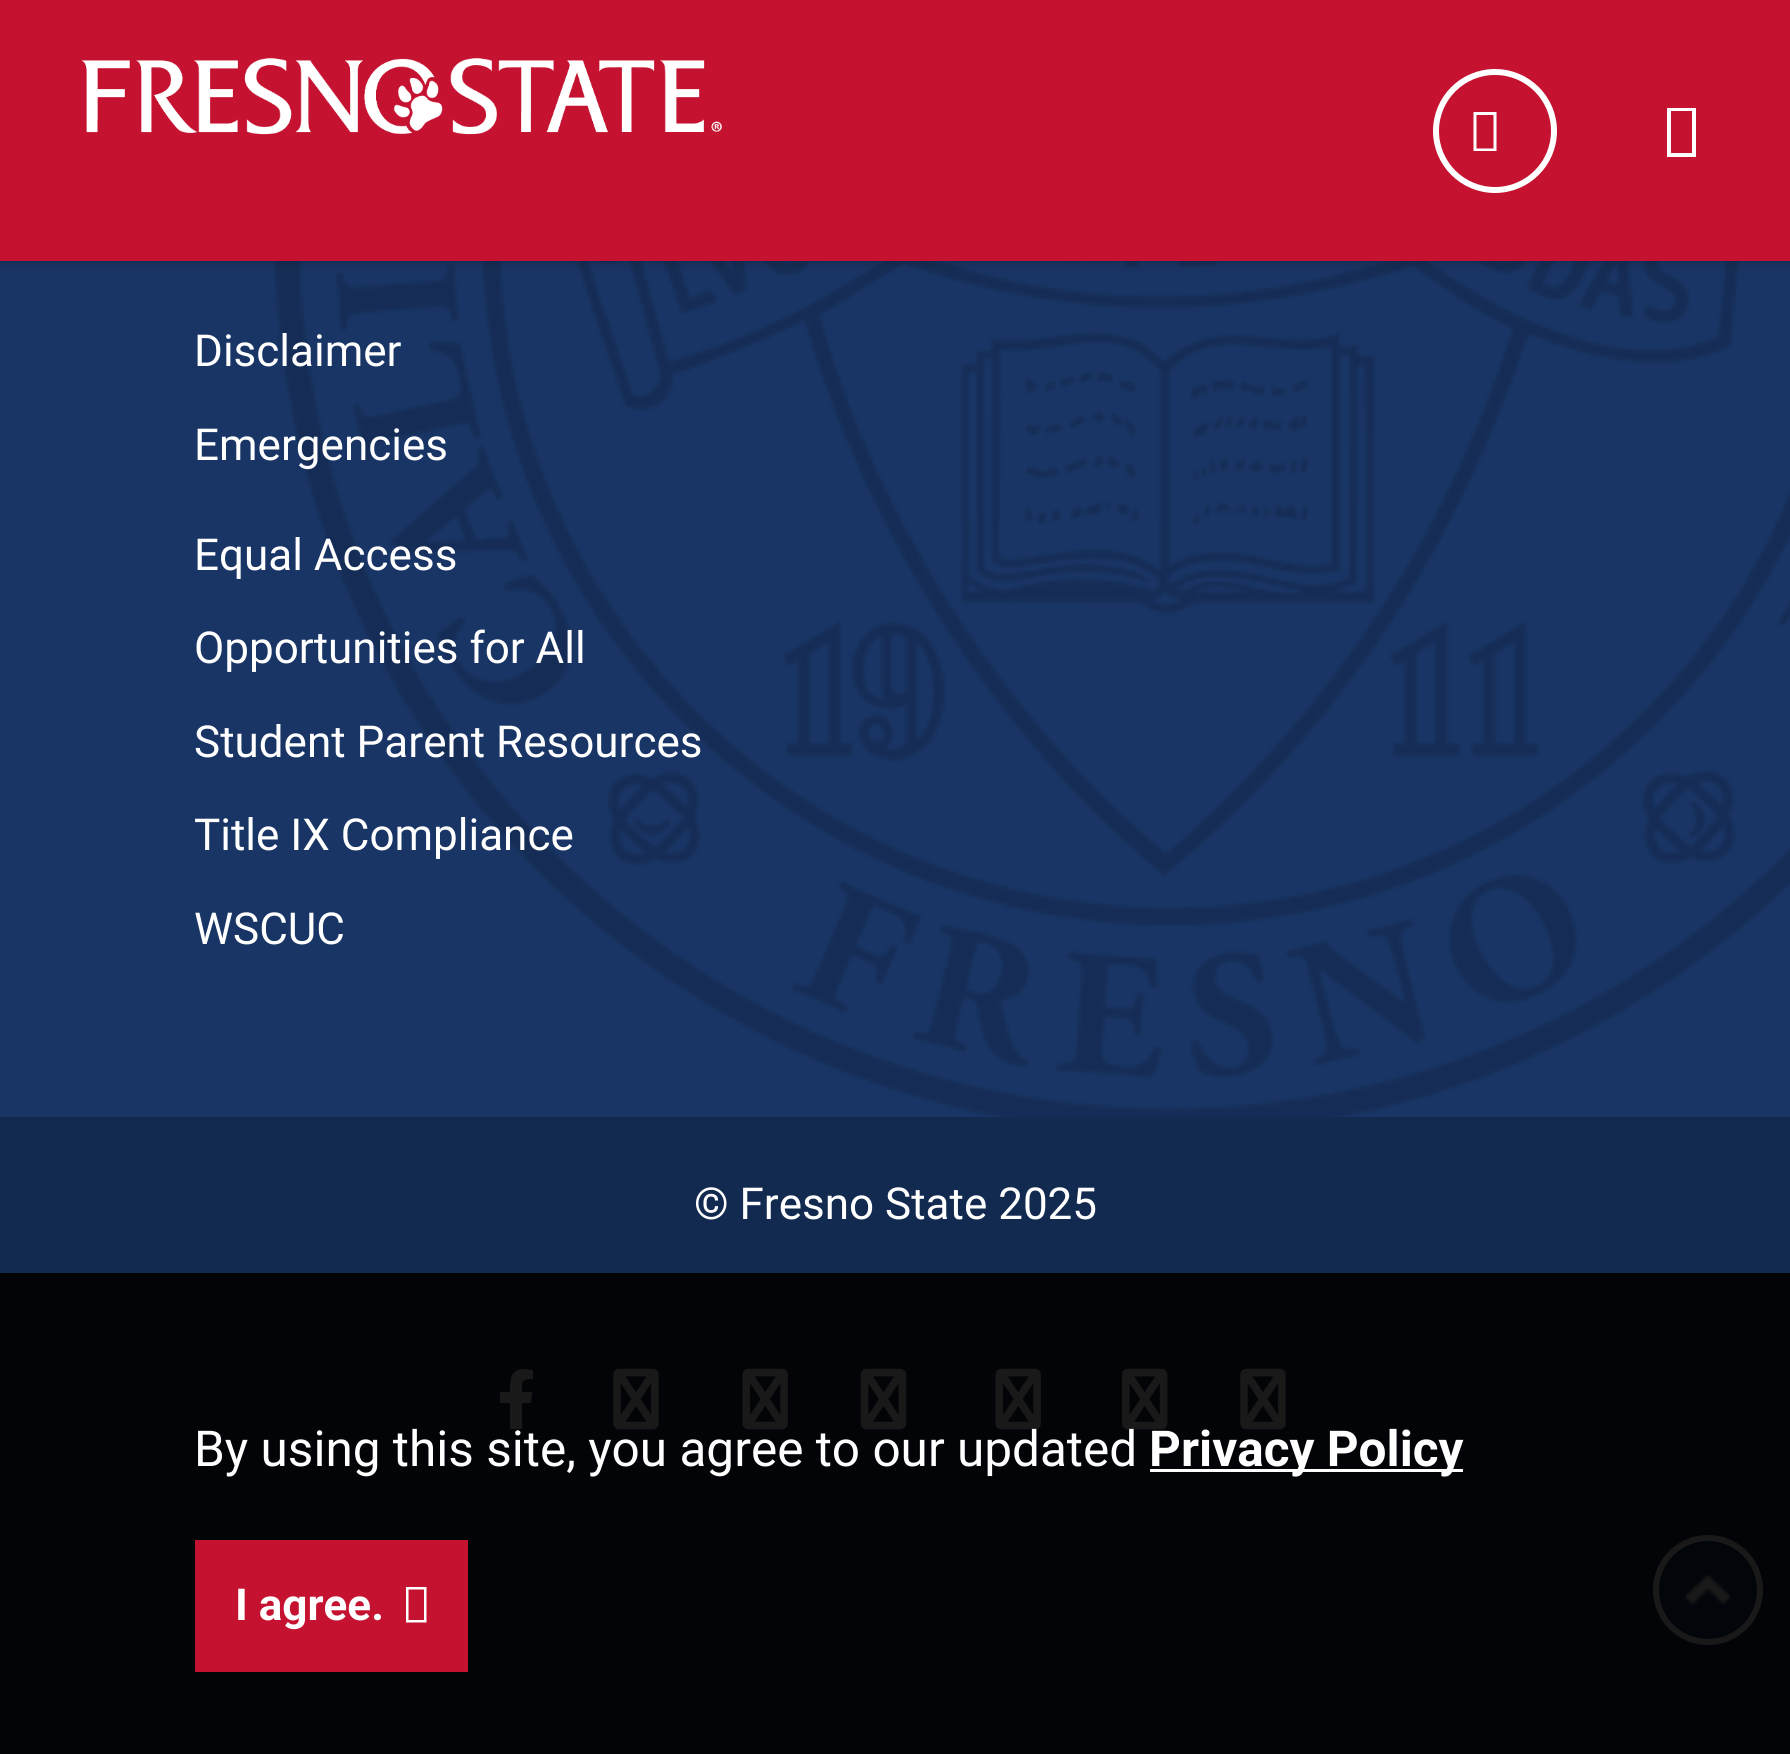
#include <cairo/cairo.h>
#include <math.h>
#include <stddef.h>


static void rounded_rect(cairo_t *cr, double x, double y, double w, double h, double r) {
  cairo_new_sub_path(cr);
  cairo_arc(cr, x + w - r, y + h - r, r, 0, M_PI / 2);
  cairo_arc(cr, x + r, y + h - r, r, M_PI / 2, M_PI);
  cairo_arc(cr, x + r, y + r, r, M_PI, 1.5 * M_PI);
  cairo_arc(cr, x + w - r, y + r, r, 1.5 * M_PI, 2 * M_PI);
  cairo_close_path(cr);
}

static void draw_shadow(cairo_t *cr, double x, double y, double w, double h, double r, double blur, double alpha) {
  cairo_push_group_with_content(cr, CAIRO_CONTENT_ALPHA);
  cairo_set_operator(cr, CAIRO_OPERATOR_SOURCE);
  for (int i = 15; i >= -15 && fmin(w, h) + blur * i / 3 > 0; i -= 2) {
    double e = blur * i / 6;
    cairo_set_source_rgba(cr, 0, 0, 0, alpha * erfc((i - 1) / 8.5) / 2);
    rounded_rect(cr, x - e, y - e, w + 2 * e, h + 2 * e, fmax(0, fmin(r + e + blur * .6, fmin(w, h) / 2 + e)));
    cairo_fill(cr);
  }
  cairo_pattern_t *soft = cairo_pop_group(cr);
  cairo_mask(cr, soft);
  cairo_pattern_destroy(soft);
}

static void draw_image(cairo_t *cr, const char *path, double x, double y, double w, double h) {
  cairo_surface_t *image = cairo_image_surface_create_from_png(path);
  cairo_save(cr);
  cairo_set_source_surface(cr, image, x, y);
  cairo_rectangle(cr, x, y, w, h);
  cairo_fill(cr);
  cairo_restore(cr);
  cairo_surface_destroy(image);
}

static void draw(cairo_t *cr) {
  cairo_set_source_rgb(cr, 25 / 255.0, 53 / 255.0, 101 / 255.0);
  cairo_paint(cr);
  draw_image(cr, "images/2.png", 275, 261, 1515, 856);
  cairo_set_source_rgb(cr, 0, 0, 0);
  draw_shadow(cr, 0, 0, 1790, 261, 0, 7, 0.25);
  cairo_set_source_rgb(cr, 196 / 255.0, 18 / 255.0, 48 / 255.0);
  cairo_rectangle(cr, 0, 0, 1790, 261);
  cairo_fill(cr);
  draw_image(cr, "images/1.png", 81, 58, 641, 77);
  cairo_arc(cr, 1495, 131, 59, 0, 2 * M_PI);
  cairo_set_source_rgb(cr, 1, 1, 1);
  cairo_set_line_width(cr, 6);
  cairo_stroke(cr);
  cairo_new_path(cr);
  cairo_move_to(cr, 1473.5, 151);
  cairo_line_to(cr, 1473.5, 112);
  cairo_line_to(cr, 1496.5, 112);
  cairo_line_to(cr, 1496.5, 151);
  cairo_close_path(cr);
  cairo_move_to(cr, 1476.5, 148.5);
  cairo_line_to(cr, 1493.5, 148.5);
  cairo_line_to(cr, 1493.5, 115);
  cairo_line_to(cr, 1476.5, 115);
  cairo_close_path(cr);
  cairo_fill(cr);
  cairo_new_path(cr);
  cairo_move_to(cr, 1667, 157);
  cairo_line_to(cr, 1667, 108);
  cairo_line_to(cr, 1696, 108);
  cairo_line_to(cr, 1696, 157);
  cairo_close_path(cr);
  cairo_move_to(cr, 1671, 153);
  cairo_line_to(cr, 1692, 153);
  cairo_line_to(cr, 1692, 111);
  cairo_line_to(cr, 1671, 111);
  cairo_close_path(cr);
  cairo_fill(cr);
  cairo_set_source_rgb(cr, 19 / 255.0, 42 / 255.0, 80 / 255.0);
  cairo_rectangle(cr, 0, 1117, 1790, 637);
  cairo_fill(cr);
  cairo_set_source_rgb(cr, 1, 1, 1);
  cairo_new_path(cr);
  cairo_move_to(cr, 531, 1403);
  cairo_line_to(cr, 532, 1392);
  cairo_line_to(cr, 522, 1392);
  cairo_curve_to(cr, 522, 1381, 521, 1379, 533, 1379);
  cairo_line_to(cr, 533, 1370);
  cairo_line_to(cr, 523, 1369);
  cairo_curve_to(cr, 509, 1370, 510, 1382, 510, 1392);
  cairo_line_to(cr, 500, 1392);
  cairo_line_to(cr, 500, 1403);
  cairo_line_to(cr, 510, 1403);
  cairo_line_to(cr, 510, 1429);
  cairo_line_to(cr, 522, 1429);
  cairo_line_to(cr, 522, 1403);
  cairo_close_path(cr);
  cairo_fill(cr);
  draw_image(cr, "images/3.png", 613, 1368, 46, 62);
  draw_image(cr, "images/4.png", 742, 1368, 46, 62);
  draw_image(cr, "images/5.png", 860, 1368, 47, 62);
  draw_image(cr, "images/4.png", 995, 1368, 46, 62);
  draw_image(cr, "images/6.png", 1122, 1368, 46, 62);
  draw_image(cr, "images/3.png", 1240, 1368, 46, 62);
  cairo_set_source_rgb(cr, 25 / 255.0, 53 / 255.0, 101 / 255.0);
  cairo_arc(cr, 1708, 1590, 55, 0, 2 * M_PI);
  cairo_fill(cr);
  draw_image(cr, "images/7.png", 1685, 1573, 45, 34);
  cairo_arc(cr, 1708, 1590, 52, 0, 2 * M_PI);
  cairo_set_source_rgb(cr, 1, 1, 1);
  cairo_stroke(cr);
  cairo_set_source_rgba(cr, 0, 0, 0, 0.9);
  cairo_rectangle(cr, 0, 1273, 1790, 481);
  cairo_fill(cr);
  cairo_set_source_rgb(cr, 1, 1, 1);
  cairo_rectangle(cr, 1150, 1469, 313, 3);
  cairo_fill(cr);
  cairo_set_source_rgb(cr, 196 / 255.0, 18 / 255.0, 48 / 255.0);
  cairo_rectangle(cr, 195, 1540, 273, 132);
  cairo_fill(cr);
  cairo_set_source_rgb(cr, 1, 1, 1);
  cairo_new_path(cr);
  cairo_move_to(cr, 406, 1622.5);
  cairo_line_to(cr, 406, 1587);
  cairo_line_to(cr, 426.5, 1587);
  cairo_line_to(cr, 426.5, 1622.5);
  cairo_close_path(cr);
  cairo_move_to(cr, 408.5, 1620);
  cairo_line_to(cr, 424, 1620);
  cairo_line_to(cr, 424, 1589.5);
  cairo_line_to(cr, 408.5, 1589.5);
  cairo_close_path(cr);
  cairo_fill(cr);
  cairo_select_font_face(cr, "Roboto", CAIRO_FONT_SLANT_NORMAL, CAIRO_FONT_WEIGHT_NORMAL);
  cairo_set_font_size(cr, 44);
  cairo_move_to(cr, 194, 366);
  cairo_show_text(cr, "Disclaimer");
  cairo_move_to(cr, 194, 460);
  cairo_show_text(cr, "Emergencies");
  cairo_move_to(cr, 194, 570);
  cairo_show_text(cr, "Equal Access");
  cairo_move_to(cr, 194, 663);
  cairo_show_text(cr, "Opportunities for All");
  cairo_move_to(cr, 194, 757);
  cairo_show_text(cr, "Student Parent Resources");
  cairo_move_to(cr, 194, 850);
  cairo_show_text(cr, "Title IX Compliance");
  cairo_move_to(cr, 194, 944);
  cairo_show_text(cr, "WSCUC");
  cairo_move_to(cr, 694, 1219);
  cairo_show_text(cr, "© Fresno State 2025");
  cairo_set_font_size(cr, 49.5);
  cairo_move_to(cr, 194, 1466);
  cairo_show_text(cr, "By using this site, you agree to our updated");
  cairo_select_font_face(cr, "Roboto", CAIRO_FONT_SLANT_NORMAL, CAIRO_FONT_WEIGHT_BOLD);
  cairo_move_to(cr, 1149, 1466);
  cairo_show_text(cr, "Privacy Policy");
  cairo_set_font_size(cr, 44);
  cairo_move_to(cr, 235, 1620);
  cairo_show_text(cr, "I agree.");
}

int main(void) {
  cairo_surface_t *surface = cairo_image_surface_create(CAIRO_FORMAT_RGB24, 1790, 1754);
  cairo_t *cr = cairo_create(surface);
  cairo_font_options_t *options = cairo_font_options_create();
  cairo_font_options_set_hint_metrics(options, CAIRO_HINT_METRICS_OFF);
  cairo_font_options_set_hint_style(options, CAIRO_HINT_STYLE_NONE);
  cairo_set_font_options(cr, options);
  cairo_set_miter_limit(cr, 4);
  draw(cr);
  cairo_surface_write_to_png(surface, "out.png");
  cairo_font_options_destroy(options);
  cairo_destroy(cr);
  cairo_surface_destroy(surface);
  return 0;
}
